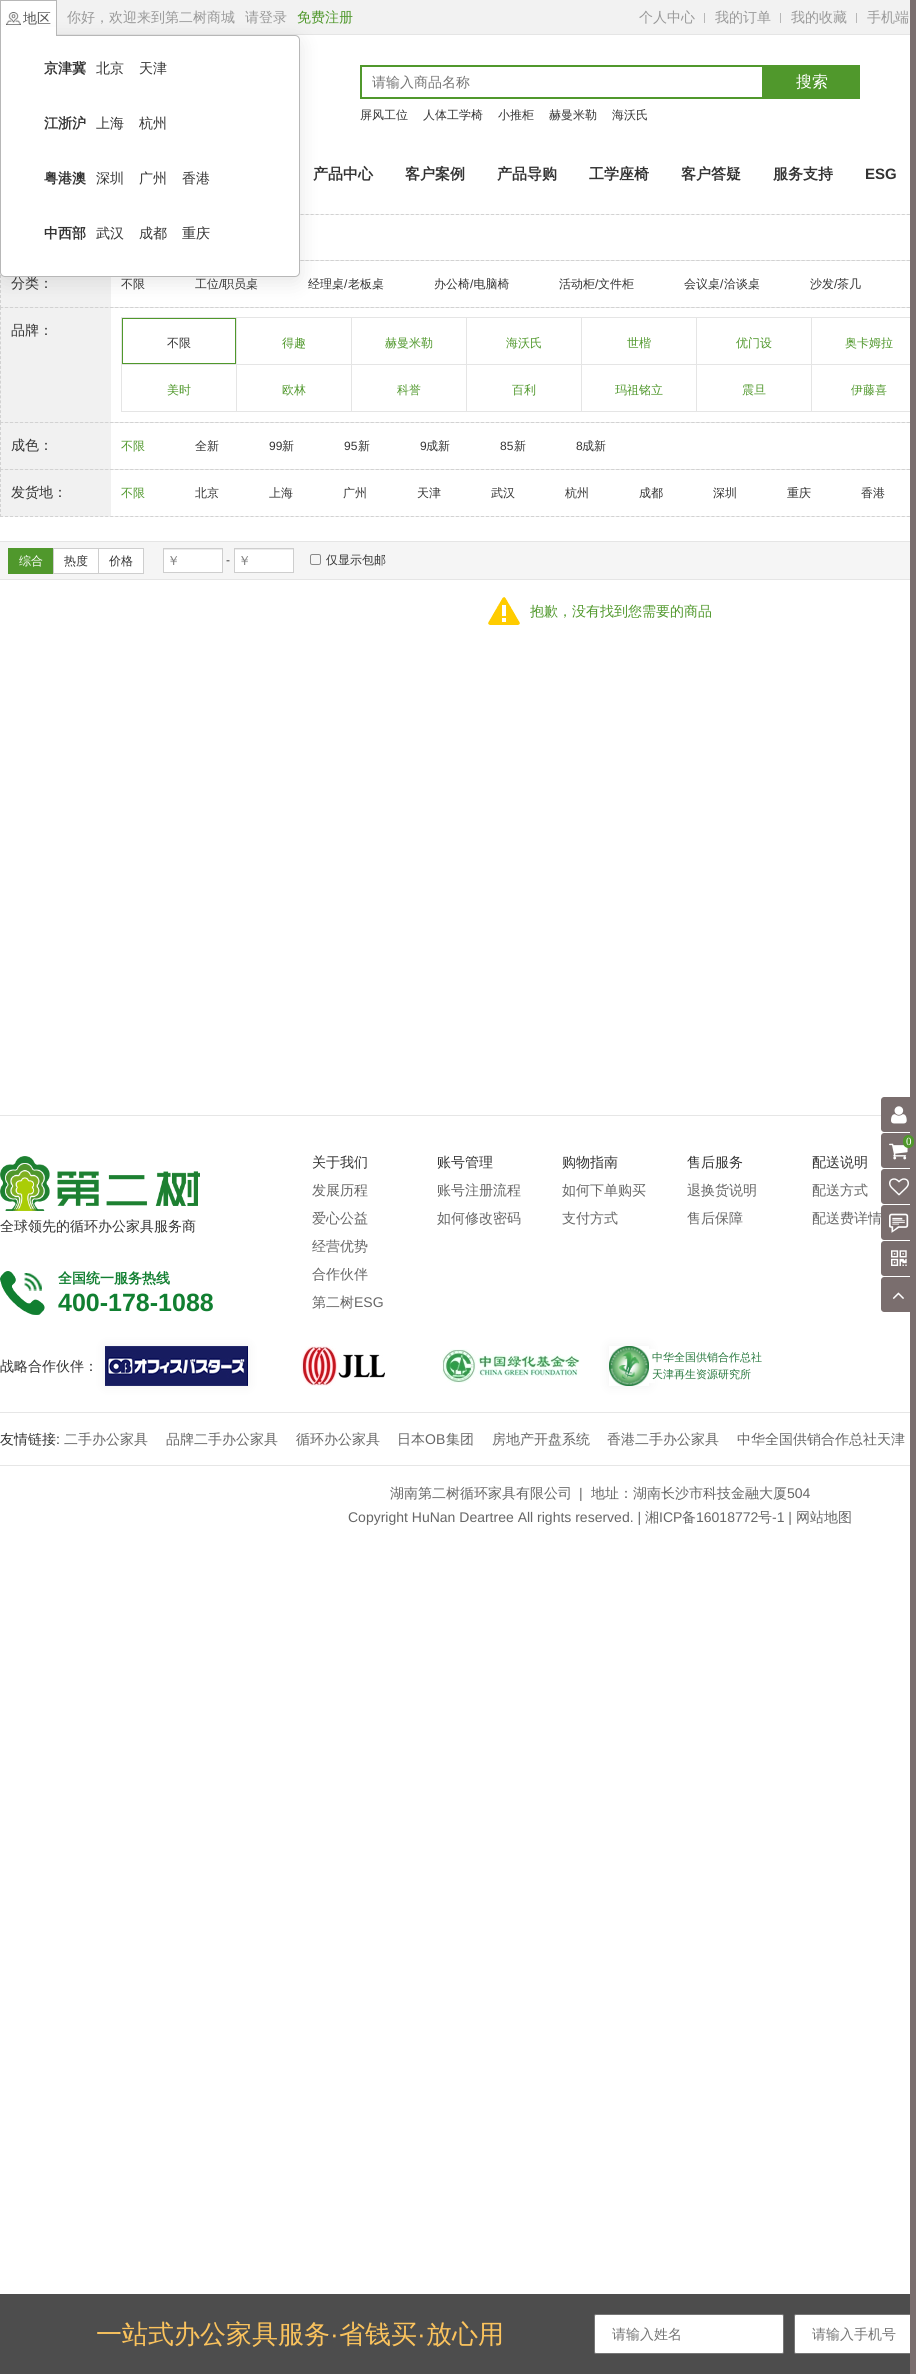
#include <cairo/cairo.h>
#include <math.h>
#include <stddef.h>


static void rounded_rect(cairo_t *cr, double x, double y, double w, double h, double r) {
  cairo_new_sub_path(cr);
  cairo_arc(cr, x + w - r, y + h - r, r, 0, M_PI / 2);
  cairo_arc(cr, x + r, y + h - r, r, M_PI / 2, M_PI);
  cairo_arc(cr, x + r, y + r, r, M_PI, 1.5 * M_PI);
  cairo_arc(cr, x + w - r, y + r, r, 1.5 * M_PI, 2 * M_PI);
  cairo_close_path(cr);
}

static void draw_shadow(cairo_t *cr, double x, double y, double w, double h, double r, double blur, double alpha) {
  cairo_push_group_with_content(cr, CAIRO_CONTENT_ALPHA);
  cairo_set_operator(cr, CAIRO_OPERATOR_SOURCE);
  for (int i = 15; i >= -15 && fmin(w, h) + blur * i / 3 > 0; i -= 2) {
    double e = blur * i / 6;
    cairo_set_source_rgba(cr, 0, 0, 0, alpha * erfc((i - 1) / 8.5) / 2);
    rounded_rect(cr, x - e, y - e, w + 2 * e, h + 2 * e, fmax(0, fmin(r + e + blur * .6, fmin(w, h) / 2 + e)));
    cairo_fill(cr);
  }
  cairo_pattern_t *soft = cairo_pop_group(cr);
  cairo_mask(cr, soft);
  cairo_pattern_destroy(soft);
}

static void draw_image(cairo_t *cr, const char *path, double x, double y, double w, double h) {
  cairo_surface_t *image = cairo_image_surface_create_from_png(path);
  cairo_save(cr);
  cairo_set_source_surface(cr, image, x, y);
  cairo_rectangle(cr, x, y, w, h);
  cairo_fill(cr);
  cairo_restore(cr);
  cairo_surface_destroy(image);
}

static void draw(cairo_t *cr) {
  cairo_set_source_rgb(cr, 1, 1, 1);
  cairo_paint(cr);
  cairo_set_source_rgb(cr, 242 / 255.0, 242 / 255.0, 242 / 255.0);
  cairo_rectangle(cr, 57, 0, 853, 34);
  cairo_fill(cr);
  cairo_set_source_rgb(cr, 229 / 255.0, 229 / 255.0, 229 / 255.0);
  cairo_rectangle(cr, 57, 34, 859, 1);
  cairo_fill(cr);
  cairo_set_source_rgb(cr, 183 / 255.0, 183 / 255.0, 183 / 255.0);
  cairo_rectangle(cr, 0, 0, 57, 1);
  cairo_fill(cr);
  cairo_set_source_rgb(cr, 242 / 255.0, 242 / 255.0, 242 / 255.0);
  cairo_rectangle(cr, 300, 214, 610, 47);
  cairo_fill(cr);
  cairo_new_path(cr);
  cairo_move_to(cr, 0, 214.5);
  cairo_line_to(cr, 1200, 214.5);
  cairo_set_source_rgb(cr, 210 / 255.0, 210 / 255.0, 210 / 255.0);
  cairo_set_line_width(cr, 1);
  cairo_set_dash(cr, (double[]){3, 2.01}, 2, 0);
  cairo_stroke(cr);
  cairo_new_path(cr);
  cairo_move_to(cr, 0, 260.5);
  cairo_line_to(cr, 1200, 260.5);
  cairo_stroke(cr);
  cairo_set_source_rgb(cr, 1, 1, 1);
  cairo_rectangle(cr, 300, 215, 610, 45);
  cairo_fill(cr);
  cairo_set_source_rgba(cr, 229 / 255.0, 229 / 255.0, 229 / 255.0, 0.5);
  cairo_rectangle(cr, 0, 260, 910, 48);
  cairo_fill(cr);
  cairo_new_path(cr);
  cairo_move_to(cr, 0, 260.5);
  cairo_line_to(cr, 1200, 260.5);
  cairo_set_source_rgb(cr, 210 / 255.0, 210 / 255.0, 210 / 255.0);
  cairo_stroke(cr);
  cairo_new_path(cr);
  cairo_move_to(cr, 0, 307.5);
  cairo_line_to(cr, 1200, 307.5);
  cairo_stroke(cr);
  cairo_new_path(cr);
  cairo_move_to(cr, 0.5, 260);
  cairo_line_to(cr, 0.5, 308);
  cairo_set_dash(cr, (double[]){3, 2}, 2, 0);
  cairo_stroke(cr);
  cairo_set_source_rgb(cr, 1, 1, 1);
  cairo_rectangle(cr, 111, 261, 799, 46);
  cairo_fill(cr);
  cairo_set_source_rgba(cr, 229 / 255.0, 229 / 255.0, 229 / 255.0, 0.5);
  cairo_rectangle(cr, 0, 307, 910, 116);
  cairo_fill(cr);
  cairo_new_path(cr);
  cairo_move_to(cr, 0, 307.5);
  cairo_line_to(cr, 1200, 307.5);
  cairo_set_source_rgb(cr, 210 / 255.0, 210 / 255.0, 210 / 255.0);
  cairo_set_dash(cr, (double[]){3, 2.01}, 2, 0);
  cairo_stroke(cr);
  cairo_new_path(cr);
  cairo_move_to(cr, 0, 422.5);
  cairo_line_to(cr, 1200, 422.5);
  cairo_stroke(cr);
  cairo_new_path(cr);
  cairo_move_to(cr, 0.5, 307);
  cairo_line_to(cr, 0.5, 423);
  cairo_set_dash(cr, (double[]){3, 1.91}, 2, 0);
  cairo_stroke(cr);
  cairo_set_source_rgb(cr, 1, 1, 1);
  cairo_rectangle(cr, 111, 308, 799, 114);
  cairo_fill(cr);
  cairo_set_source_rgb(cr, 0, 0, 0);
  draw_shadow(cr, 0, 40, 300, 242, 5, 10, 0.1);
  draw_image(cr, "images/1.png", 6, 12, 15, 13);
  cairo_set_source_rgb(cr, 183 / 255.0, 183 / 255.0, 183 / 255.0);
  cairo_rectangle(cr, 704, 13, 1, 10);
  cairo_fill(cr);
  cairo_rectangle(cr, 780, 13, 1, 10);
  cairo_fill(cr);
  cairo_rectangle(cr, 856, 13, 1, 10);
  cairo_fill(cr);
  cairo_rectangle(cr, 361, 66, 402, 32);
  cairo_set_source_rgb(cr, 80 / 255.0, 152 / 255.0, 44 / 255.0);
  cairo_set_line_width(cr, 2);
  cairo_set_dash(cr, NULL, 0, 0);
  cairo_stroke(cr);
  cairo_rectangle(cr, 764, 65, 96, 34);
  cairo_fill(cr);
  cairo_rectangle(cr, 121.5, 317.5, 115, 47);
  cairo_set_source_rgb(cr, 229 / 255.0, 229 / 255.0, 229 / 255.0);
  cairo_set_line_width(cr, 1);
  cairo_stroke(cr);
  cairo_rectangle(cr, 122.5, 318.5, 113, 45);
  cairo_set_source_rgb(cr, 80 / 255.0, 152 / 255.0, 44 / 255.0);
  cairo_stroke(cr);
  cairo_rectangle(cr, 236.5, 317.5, 115, 47);
  cairo_set_source_rgb(cr, 229 / 255.0, 229 / 255.0, 229 / 255.0);
  cairo_stroke(cr);
  cairo_rectangle(cr, 351.5, 317.5, 115, 47);
  cairo_stroke(cr);
  cairo_rectangle(cr, 466.5, 317.5, 115, 47);
  cairo_stroke(cr);
  cairo_rectangle(cr, 581.5, 317.5, 115, 47);
  cairo_stroke(cr);
  cairo_rectangle(cr, 696.5, 317.5, 115, 47);
  cairo_stroke(cr);
  cairo_rectangle(cr, 811.5, 317.5, 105, 47);
  cairo_stroke(cr);
  cairo_rectangle(cr, 121.5, 364.5, 115, 47);
  cairo_stroke(cr);
  cairo_rectangle(cr, 236.5, 364.5, 115, 47);
  cairo_stroke(cr);
  cairo_rectangle(cr, 351.5, 364.5, 115, 47);
  cairo_stroke(cr);
  cairo_rectangle(cr, 466.5, 364.5, 115, 47);
  cairo_stroke(cr);
  cairo_rectangle(cr, 581.5, 364.5, 115, 47);
  cairo_stroke(cr);
  cairo_rectangle(cr, 696.5, 364.5, 115, 47);
  cairo_stroke(cr);
  cairo_rectangle(cr, 811.5, 364.5, 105, 47);
  cairo_stroke(cr);
  cairo_set_source_rgba(cr, 229 / 255.0, 229 / 255.0, 229 / 255.0, 0.5);
  cairo_rectangle(cr, 0, 422, 910, 48);
  cairo_fill(cr);
  cairo_new_path(cr);
  cairo_move_to(cr, 0, 422.5);
  cairo_line_to(cr, 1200, 422.5);
  cairo_set_source_rgb(cr, 210 / 255.0, 210 / 255.0, 210 / 255.0);
  cairo_set_dash(cr, (double[]){3, 2.01}, 2, 0);
  cairo_stroke(cr);
  cairo_new_path(cr);
  cairo_move_to(cr, 0, 469.5);
  cairo_line_to(cr, 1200, 469.5);
  cairo_stroke(cr);
  cairo_new_path(cr);
  cairo_move_to(cr, 0.5, 422);
  cairo_line_to(cr, 0.5, 470);
  cairo_set_dash(cr, (double[]){3, 2}, 2, 0);
  cairo_stroke(cr);
  cairo_set_source_rgb(cr, 1, 1, 1);
  cairo_rectangle(cr, 111, 423, 799, 46);
  cairo_fill(cr);
  cairo_set_source_rgba(cr, 229 / 255.0, 229 / 255.0, 229 / 255.0, 0.5);
  cairo_rectangle(cr, 0, 469, 910, 48);
  cairo_fill(cr);
  cairo_new_path(cr);
  cairo_move_to(cr, 0, 469.5);
  cairo_line_to(cr, 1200, 469.5);
  cairo_set_source_rgb(cr, 210 / 255.0, 210 / 255.0, 210 / 255.0);
  cairo_set_dash(cr, (double[]){3, 2.01}, 2, 0);
  cairo_stroke(cr);
  cairo_new_path(cr);
  cairo_move_to(cr, 0, 516.5);
  cairo_line_to(cr, 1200, 516.5);
  cairo_stroke(cr);
  cairo_new_path(cr);
  cairo_move_to(cr, 0.5, 469);
  cairo_line_to(cr, 0.5, 517);
  cairo_set_dash(cr, (double[]){3, 2}, 2, 0);
  cairo_stroke(cr);
  cairo_set_source_rgb(cr, 1, 1, 1);
  cairo_rectangle(cr, 111, 470, 799, 46);
  cairo_fill(cr);
  cairo_set_source_rgb(cr, 229 / 255.0, 229 / 255.0, 229 / 255.0);
  cairo_rectangle(cr, 0, 541, 916, 1);
  cairo_fill(cr);
  cairo_set_source_rgb(cr, 245 / 255.0, 245 / 255.0, 245 / 255.0);
  cairo_rectangle(cr, 0, 542, 910, 37);
  cairo_fill(cr);
  cairo_set_source_rgb(cr, 229 / 255.0, 229 / 255.0, 229 / 255.0);
  cairo_rectangle(cr, 0, 579, 916, 1);
  cairo_fill(cr);
  cairo_set_source_rgb(cr, 80 / 255.0, 152 / 255.0, 44 / 255.0);
  cairo_rectangle(cr, 8, 548, 45, 26);
  cairo_fill(cr);
  cairo_set_source_rgb(cr, 1, 1, 1);
  cairo_rectangle(cr, 53.5, 548.5, 45, 25);
  cairo_fill_preserve(cr);
  cairo_set_source_rgb(cr, 206 / 255.0, 206 / 255.0, 206 / 255.0);
  cairo_set_dash(cr, NULL, 0, 0);
  cairo_stroke(cr);
  cairo_set_source_rgb(cr, 1, 1, 1);
  cairo_rectangle(cr, 98.5, 548.5, 45, 25);
  cairo_fill_preserve(cr);
  cairo_set_source_rgb(cr, 206 / 255.0, 206 / 255.0, 206 / 255.0);
  cairo_stroke(cr);
  cairo_set_source_rgb(cr, 1, 1, 1);
  cairo_rectangle(cr, 164, 550, 58, 22);
  cairo_fill(cr);
  cairo_set_source_rgb(cr, 236 / 255.0, 236 / 255.0, 236 / 255.0);
  cairo_rectangle(cr, 164, 549, 58, 1);
  cairo_fill(cr);
  cairo_rectangle(cr, 163.5, 548.5, 59, 24);
  cairo_set_source_rgb(cr, 206 / 255.0, 206 / 255.0, 206 / 255.0);
  cairo_stroke(cr);
  cairo_set_source_rgb(cr, 1, 1, 1);
  cairo_rectangle(cr, 235, 550, 58, 22);
  cairo_fill(cr);
  cairo_set_source_rgb(cr, 236 / 255.0, 236 / 255.0, 236 / 255.0);
  cairo_rectangle(cr, 235, 549, 58, 1);
  cairo_fill(cr);
  cairo_rectangle(cr, 234.5, 548.5, 59, 24);
  cairo_set_source_rgb(cr, 206 / 255.0, 206 / 255.0, 206 / 255.0);
  cairo_stroke(cr);
  draw_image(cr, "images/2.png", 310, 554, 11, 11);
  draw_image(cr, "images/3.png", 488, 597, 32, 28);
  cairo_set_source_rgb(cr, 230 / 255.0, 230 / 255.0, 230 / 255.0);
  cairo_rectangle(cr, 0, 1412, 916, 1);
  cairo_fill(cr);
  cairo_rectangle(cr, 0, 1465, 916, 1);
  cairo_fill(cr);
  cairo_set_source_rgb(cr, 77 / 255.0, 77 / 255.0, 77 / 255.0);
  cairo_rectangle(cr, 0, 2294, 910, 80);
  cairo_fill(cr);
  cairo_set_source_rgb(cr, 1, 1, 1);
  rounded_rect(cr, 794.5, 2314.5, 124, 39, 1.5);
  cairo_fill_preserve(cr);
  cairo_set_source_rgb(cr, 118 / 255.0, 118 / 255.0, 118 / 255.0);
  cairo_stroke(cr);
  cairo_set_source_rgb(cr, 122 / 255.0, 110 / 255.0, 110 / 255.0);
  cairo_rectangle(cr, 910, 0, 6, 2374);
  cairo_fill(cr);
  cairo_new_path(cr);
  cairo_move_to(cr, 884, 1097);
  cairo_line_to(cr, 916, 1097);
  cairo_line_to(cr, 916, 1132);
  cairo_line_to(cr, 884, 1132);
  cairo_curve_to(cr, 882.5, 1132, 881, 1130.5, 881, 1129);
  cairo_line_to(cr, 881, 1100);
  cairo_curve_to(cr, 881, 1098.5, 882.5, 1097, 884, 1097);
  cairo_close_path(cr);
  cairo_fill(cr);
  draw_image(cr, "images/4.png", 891, 1106, 16, 18);
  cairo_new_path(cr);
  cairo_move_to(cr, 884, 1133);
  cairo_line_to(cr, 916, 1133);
  cairo_line_to(cr, 916, 1168);
  cairo_line_to(cr, 884, 1168);
  cairo_curve_to(cr, 882.5, 1168, 881, 1166.5, 881, 1165);
  cairo_line_to(cr, 881, 1136);
  cairo_curve_to(cr, 881, 1134.5, 882.5, 1133, 884, 1133);
  cairo_close_path(cr);
  cairo_fill(cr);
  draw_image(cr, "images/5.png", 889, 1143, 19, 17);
  cairo_set_source_rgb(cr, 80 / 255.0, 152 / 255.0, 44 / 255.0);
  rounded_rect(cr, 903, 1135, 11, 13, 5.5);
  cairo_fill(cr);
  cairo_set_source_rgb(cr, 122 / 255.0, 110 / 255.0, 110 / 255.0);
  cairo_new_path(cr);
  cairo_move_to(cr, 884, 1169);
  cairo_line_to(cr, 916, 1169);
  cairo_line_to(cr, 916, 1204);
  cairo_line_to(cr, 884, 1204);
  cairo_curve_to(cr, 882.5, 1204, 881, 1202.5, 881, 1201);
  cairo_line_to(cr, 881, 1172);
  cairo_curve_to(cr, 881, 1170.5, 882.5, 1169, 884, 1169);
  cairo_close_path(cr);
  cairo_fill(cr);
  draw_image(cr, "images/6.png", 889, 1178, 20, 18);
  cairo_new_path(cr);
  cairo_move_to(cr, 884, 1241);
  cairo_line_to(cr, 916, 1241);
  cairo_line_to(cr, 916, 1276);
  cairo_line_to(cr, 884, 1276);
  cairo_curve_to(cr, 882.5, 1276, 881, 1274.5, 881, 1273);
  cairo_line_to(cr, 881, 1244);
  cairo_curve_to(cr, 881, 1242.5, 882.5, 1241, 884, 1241);
  cairo_close_path(cr);
  cairo_fill(cr);
  draw_image(cr, "images/8.png", 891, 1250, 16, 16);
  cairo_new_path(cr);
  cairo_move_to(cr, 884, 1277);
  cairo_line_to(cr, 916, 1277);
  cairo_line_to(cr, 916, 1312);
  cairo_line_to(cr, 884, 1312);
  cairo_curve_to(cr, 882.5, 1312, 881, 1310.5, 881, 1309);
  cairo_line_to(cr, 881, 1280);
  cairo_curve_to(cr, 881, 1278.5, 882.5, 1277, 884, 1277);
  cairo_close_path(cr);
  cairo_fill(cr);
  draw_image(cr, "images/9.png", 892, 1292, 12, 7);
  cairo_set_source_rgb(cr, 230 / 255.0, 230 / 255.0, 230 / 255.0);
  cairo_rectangle(cr, 0, 1115, 881, 1);
  cairo_fill(cr);
  draw_image(cr, "images/10.png", 0, 1156, 200, 55);
  draw_image(cr, "images/11.png", 0, 1271, 45, 44);
  cairo_set_source_rgb(cr, 0, 0, 0);
  draw_shadow(cr, 105, 1346, 143, 40, 0, 6, 0.06);
  draw_image(cr, "images/12.png", 105, 1346, 143, 40);
  draw_image(cr, "images/13.png", 301, 1346, 84, 40);
  draw_image(cr, "images/14.png", 442, 1349, 138, 34);
  draw_shadow(cr, 609, 1346, 40, 40, 0, 6, 0.06);
  draw_image(cr, "images/15.png", 609, 1346, 40, 40);
  cairo_set_source_rgb(cr, 1, 1, 1);
  cairo_rectangle(cr, 649, 1349, 6, 34);
  cairo_fill(cr);
  rounded_rect(cr, 594.5, 2314.5, 189, 39, 1.5);
  cairo_fill_preserve(cr);
  cairo_set_source_rgb(cr, 118 / 255.0, 118 / 255.0, 118 / 255.0);
  cairo_stroke(cr);
  cairo_select_font_face(cr, "WenQuanYi Zen Hei Medium", CAIRO_FONT_SLANT_NORMAL, CAIRO_FONT_WEIGHT_NORMAL);
  cairo_set_font_size(cr, 14);
  cairo_set_source_rgb(cr, 153 / 255.0, 153 / 255.0, 153 / 255.0);
  cairo_move_to(cr, 67, 22);
  cairo_show_text(cr, "你好，欢迎来到第二树商城");
  cairo_move_to(cr, 245, 22);
  cairo_show_text(cr, "请登录");
  cairo_set_source_rgb(cr, 80 / 255.0, 152 / 255.0, 44 / 255.0);
  cairo_move_to(cr, 297, 22);
  cairo_show_text(cr, "免费注册");
  cairo_set_source_rgb(cr, 85 / 255.0, 85 / 255.0, 85 / 255.0);
  cairo_move_to(cr, 23, 23);
  cairo_show_text(cr, "地区");
  cairo_set_source_rgb(cr, 153 / 255.0, 153 / 255.0, 153 / 255.0);
  cairo_move_to(cr, 639, 22);
  cairo_show_text(cr, "个人中心");
  cairo_move_to(cr, 715, 22);
  cairo_show_text(cr, "我的订单");
  cairo_move_to(cr, 791, 22);
  cairo_show_text(cr, "我的收藏");
  cairo_move_to(cr, 867, 22);
  cairo_show_text(cr, "手机端");
  cairo_set_source_rgb(cr, 117 / 255.0, 117 / 255.0, 117 / 255.0);
  cairo_move_to(cr, 372, 87);
  cairo_show_text(cr, "请输入商品名称");
  cairo_set_font_size(cr, 16);
  cairo_set_source_rgb(cr, 1, 1, 1);
  cairo_move_to(cr, 796, 87);
  cairo_show_text(cr, "搜索");
  cairo_set_font_size(cr, 12);
  cairo_set_source_rgb(cr, 51 / 255.0, 51 / 255.0, 51 / 255.0);
  cairo_move_to(cr, 360, 119);
  cairo_show_text(cr, "屏风工位");
  cairo_move_to(cr, 423, 119);
  cairo_show_text(cr, "人体工学椅");
  cairo_move_to(cr, 498, 119);
  cairo_show_text(cr, "小推柜");
  cairo_move_to(cr, 549, 119);
  cairo_show_text(cr, "赫曼米勒");
  cairo_move_to(cr, 612, 119);
  cairo_show_text(cr, "海沃氏");
  cairo_select_font_face(cr, "WenQuanYi Zen Hei", CAIRO_FONT_SLANT_NORMAL, CAIRO_FONT_WEIGHT_BOLD);
  cairo_set_font_size(cr, 15);
  cairo_move_to(cr, 313, 179);
  cairo_show_text(cr, "产品中心");
  cairo_move_to(cr, 405, 179);
  cairo_show_text(cr, "客户案例");
  cairo_move_to(cr, 497, 179);
  cairo_show_text(cr, "产品导购");
  cairo_move_to(cr, 589, 179);
  cairo_show_text(cr, "工学座椅");
  cairo_move_to(cr, 681, 179);
  cairo_show_text(cr, "客户答疑");
  cairo_move_to(cr, 773, 179);
  cairo_show_text(cr, "服务支持");
  cairo_select_font_face(cr, "Liberation Sans", CAIRO_FONT_SLANT_NORMAL, CAIRO_FONT_WEIGHT_BOLD);
  cairo_move_to(cr, 865, 179);
  cairo_show_text(cr, "ESG");
  cairo_select_font_face(cr, "WenQuanYi Zen Hei Medium", CAIRO_FONT_SLANT_NORMAL, CAIRO_FONT_WEIGHT_NORMAL);
  cairo_set_font_size(cr, 14);
  cairo_move_to(cr, 11, 288);
  cairo_show_text(cr, "分类：");
  cairo_set_source_rgb(cr, 1, 1, 1);
  cairo_new_path(cr);
  cairo_move_to(cr, 0.5, 35.5);
  cairo_line_to(cr, 295, 35.5);
  cairo_curve_to(cr, 297.5, 35.5, 299.5, 37.5, 299.5, 40);
  cairo_line_to(cr, 299.5, 272);
  cairo_curve_to(cr, 299.5, 274.5, 297.5, 276.5, 295, 276.5);
  cairo_line_to(cr, 5, 276.5);
  cairo_curve_to(cr, 2.5, 276.5, 0.5, 274.5, 0.5, 272);
  cairo_close_path(cr);
  cairo_fill_preserve(cr);
  cairo_set_source_rgb(cr, 183 / 255.0, 183 / 255.0, 183 / 255.0);
  cairo_stroke(cr);
  cairo_rectangle(cr, 0, 0, 1, 36);
  cairo_fill(cr);
  cairo_rectangle(cr, 56, 0, 1, 36);
  cairo_fill(cr);
  cairo_set_source_rgb(cr, 1, 1, 1);
  cairo_rectangle(cr, 1, 27, 55, 9);
  cairo_fill(cr);
  cairo_set_source_rgb(cr, 51 / 255.0, 51 / 255.0, 51 / 255.0);
  cairo_move_to(cr, 182, 238);
  cairo_show_text(cr, "重庆");
  cairo_move_to(cr, 139, 238);
  cairo_show_text(cr, "成都");
  cairo_move_to(cr, 96, 238);
  cairo_show_text(cr, "武汉");
  cairo_select_font_face(cr, "WenQuanYi Zen Hei", CAIRO_FONT_SLANT_NORMAL, CAIRO_FONT_WEIGHT_BOLD);
  cairo_move_to(cr, 44, 238);
  cairo_show_text(cr, "中西部");
  cairo_select_font_face(cr, "WenQuanYi Zen Hei Medium", CAIRO_FONT_SLANT_NORMAL, CAIRO_FONT_WEIGHT_NORMAL);
  cairo_move_to(cr, 182, 183);
  cairo_show_text(cr, "香港");
  cairo_move_to(cr, 139, 183);
  cairo_show_text(cr, "广州");
  cairo_move_to(cr, 96, 183);
  cairo_show_text(cr, "深圳");
  cairo_select_font_face(cr, "WenQuanYi Zen Hei", CAIRO_FONT_SLANT_NORMAL, CAIRO_FONT_WEIGHT_BOLD);
  cairo_move_to(cr, 44, 183);
  cairo_show_text(cr, "粤港澳");
  cairo_select_font_face(cr, "WenQuanYi Zen Hei Medium", CAIRO_FONT_SLANT_NORMAL, CAIRO_FONT_WEIGHT_NORMAL);
  cairo_move_to(cr, 139, 128);
  cairo_show_text(cr, "杭州");
  cairo_move_to(cr, 96, 128);
  cairo_show_text(cr, "上海");
  cairo_select_font_face(cr, "WenQuanYi Zen Hei", CAIRO_FONT_SLANT_NORMAL, CAIRO_FONT_WEIGHT_BOLD);
  cairo_move_to(cr, 44, 128);
  cairo_show_text(cr, "江浙沪");
  cairo_select_font_face(cr, "WenQuanYi Zen Hei Medium", CAIRO_FONT_SLANT_NORMAL, CAIRO_FONT_WEIGHT_NORMAL);
  cairo_move_to(cr, 139, 73);
  cairo_show_text(cr, "天津");
  cairo_move_to(cr, 96, 73);
  cairo_show_text(cr, "北京");
  cairo_select_font_face(cr, "WenQuanYi Zen Hei", CAIRO_FONT_SLANT_NORMAL, CAIRO_FONT_WEIGHT_BOLD);
  cairo_move_to(cr, 44, 73);
  cairo_show_text(cr, "京津冀");
  cairo_select_font_face(cr, "WenQuanYi Zen Hei Medium", CAIRO_FONT_SLANT_NORMAL, CAIRO_FONT_WEIGHT_NORMAL);
  cairo_set_font_size(cr, 12);
  cairo_move_to(cr, 121, 288);
  cairo_show_text(cr, "不限");
  cairo_move_to(cr, 195, 288);
  cairo_show_text(cr, "工位");
  cairo_select_font_face(cr, "Liberation Sans", CAIRO_FONT_SLANT_NORMAL, CAIRO_FONT_WEIGHT_NORMAL);
  cairo_move_to(cr, 219, 288);
  cairo_show_text(cr, "/");
  cairo_select_font_face(cr, "WenQuanYi Zen Hei Medium", CAIRO_FONT_SLANT_NORMAL, CAIRO_FONT_WEIGHT_NORMAL);
  cairo_move_to(cr, 222, 288);
  cairo_show_text(cr, "职员桌");
  cairo_move_to(cr, 308, 288);
  cairo_show_text(cr, "经理桌");
  cairo_select_font_face(cr, "Liberation Sans", CAIRO_FONT_SLANT_NORMAL, CAIRO_FONT_WEIGHT_NORMAL);
  cairo_move_to(cr, 344, 288);
  cairo_show_text(cr, "/");
  cairo_select_font_face(cr, "WenQuanYi Zen Hei Medium", CAIRO_FONT_SLANT_NORMAL, CAIRO_FONT_WEIGHT_NORMAL);
  cairo_move_to(cr, 348, 288);
  cairo_show_text(cr, "老板桌");
  cairo_move_to(cr, 434, 288);
  cairo_show_text(cr, "办公椅 电脑椅");
  cairo_select_font_face(cr, "Liberation Sans", CAIRO_FONT_SLANT_NORMAL, CAIRO_FONT_WEIGHT_NORMAL);
  cairo_move_to(cr, 470, 288);
  cairo_show_text(cr, "/");
  cairo_select_font_face(cr, "WenQuanYi Zen Hei Medium", CAIRO_FONT_SLANT_NORMAL, CAIRO_FONT_WEIGHT_NORMAL);
  cairo_move_to(cr, 559, 288);
  cairo_show_text(cr, "活动柜");
  cairo_select_font_face(cr, "Liberation Sans", CAIRO_FONT_SLANT_NORMAL, CAIRO_FONT_WEIGHT_NORMAL);
  cairo_move_to(cr, 595, 288);
  cairo_show_text(cr, "/");
  cairo_select_font_face(cr, "WenQuanYi Zen Hei Medium", CAIRO_FONT_SLANT_NORMAL, CAIRO_FONT_WEIGHT_NORMAL);
  cairo_move_to(cr, 598, 288);
  cairo_show_text(cr, "文件柜");
  cairo_move_to(cr, 684, 288);
  cairo_show_text(cr, "会议桌");
  cairo_select_font_face(cr, "Liberation Sans", CAIRO_FONT_SLANT_NORMAL, CAIRO_FONT_WEIGHT_NORMAL);
  cairo_move_to(cr, 720, 288);
  cairo_show_text(cr, "/");
  cairo_select_font_face(cr, "WenQuanYi Zen Hei Medium", CAIRO_FONT_SLANT_NORMAL, CAIRO_FONT_WEIGHT_NORMAL);
  cairo_move_to(cr, 724, 288);
  cairo_show_text(cr, "洽谈桌");
  cairo_move_to(cr, 810, 288);
  cairo_show_text(cr, "沙发");
  cairo_select_font_face(cr, "Liberation Sans", CAIRO_FONT_SLANT_NORMAL, CAIRO_FONT_WEIGHT_NORMAL);
  cairo_move_to(cr, 834, 288);
  cairo_show_text(cr, "/");
  cairo_select_font_face(cr, "WenQuanYi Zen Hei Medium", CAIRO_FONT_SLANT_NORMAL, CAIRO_FONT_WEIGHT_NORMAL);
  cairo_move_to(cr, 837, 288);
  cairo_show_text(cr, "茶几");
  cairo_set_font_size(cr, 14);
  cairo_move_to(cr, 11, 335);
  cairo_show_text(cr, "品牌：");
  cairo_set_font_size(cr, 12);
  cairo_move_to(cr, 167, 347);
  cairo_show_text(cr, "不限");
  cairo_set_source_rgb(cr, 80 / 255.0, 152 / 255.0, 44 / 255.0);
  cairo_move_to(cr, 282, 347);
  cairo_show_text(cr, "得趣");
  cairo_move_to(cr, 385, 347);
  cairo_show_text(cr, "赫曼米勒");
  cairo_move_to(cr, 506, 347);
  cairo_show_text(cr, "海沃氏");
  cairo_move_to(cr, 627, 347);
  cairo_show_text(cr, "世楷");
  cairo_move_to(cr, 736, 347);
  cairo_show_text(cr, "优门设");
  cairo_move_to(cr, 845, 347);
  cairo_show_text(cr, "奥卡姆拉");
  cairo_move_to(cr, 167, 394);
  cairo_show_text(cr, "美时");
  cairo_move_to(cr, 282, 394);
  cairo_show_text(cr, "欧林");
  cairo_move_to(cr, 397, 394);
  cairo_show_text(cr, "科誉");
  cairo_move_to(cr, 512, 394);
  cairo_show_text(cr, "百利");
  cairo_move_to(cr, 615, 394);
  cairo_show_text(cr, "玛祖铭立");
  cairo_move_to(cr, 742, 394);
  cairo_show_text(cr, "震旦");
  cairo_move_to(cr, 851, 394);
  cairo_show_text(cr, "伊藤喜");
  cairo_set_font_size(cr, 14);
  cairo_set_source_rgb(cr, 51 / 255.0, 51 / 255.0, 51 / 255.0);
  cairo_move_to(cr, 11, 450);
  cairo_show_text(cr, "成色：");
  cairo_set_font_size(cr, 12);
  cairo_set_source_rgb(cr, 80 / 255.0, 152 / 255.0, 44 / 255.0);
  cairo_move_to(cr, 121, 450);
  cairo_show_text(cr, "不限");
  cairo_set_source_rgb(cr, 51 / 255.0, 51 / 255.0, 51 / 255.0);
  cairo_move_to(cr, 195, 450);
  cairo_show_text(cr, "全新");
  cairo_select_font_face(cr, "Liberation Sans", CAIRO_FONT_SLANT_NORMAL, CAIRO_FONT_WEIGHT_NORMAL);
  cairo_move_to(cr, 269, 450);
  cairo_show_text(cr, "99");
  cairo_select_font_face(cr, "WenQuanYi Zen Hei Medium", CAIRO_FONT_SLANT_NORMAL, CAIRO_FONT_WEIGHT_NORMAL);
  cairo_move_to(cr, 282, 450);
  cairo_show_text(cr, "新");
  cairo_select_font_face(cr, "Liberation Sans", CAIRO_FONT_SLANT_NORMAL, CAIRO_FONT_WEIGHT_NORMAL);
  cairo_move_to(cr, 344, 450);
  cairo_show_text(cr, "95");
  cairo_select_font_face(cr, "WenQuanYi Zen Hei Medium", CAIRO_FONT_SLANT_NORMAL, CAIRO_FONT_WEIGHT_NORMAL);
  cairo_move_to(cr, 358, 450);
  cairo_show_text(cr, "新");
  cairo_select_font_face(cr, "Liberation Sans", CAIRO_FONT_SLANT_NORMAL, CAIRO_FONT_WEIGHT_NORMAL);
  cairo_move_to(cr, 420, 450);
  cairo_show_text(cr, "9");
  cairo_select_font_face(cr, "WenQuanYi Zen Hei Medium", CAIRO_FONT_SLANT_NORMAL, CAIRO_FONT_WEIGHT_NORMAL);
  cairo_move_to(cr, 426, 450);
  cairo_show_text(cr, "成新");
  cairo_select_font_face(cr, "Liberation Sans", CAIRO_FONT_SLANT_NORMAL, CAIRO_FONT_WEIGHT_NORMAL);
  cairo_move_to(cr, 500, 450);
  cairo_show_text(cr, "85");
  cairo_select_font_face(cr, "WenQuanYi Zen Hei Medium", CAIRO_FONT_SLANT_NORMAL, CAIRO_FONT_WEIGHT_NORMAL);
  cairo_move_to(cr, 514, 450);
  cairo_show_text(cr, "新");
  cairo_select_font_face(cr, "Liberation Sans", CAIRO_FONT_SLANT_NORMAL, CAIRO_FONT_WEIGHT_NORMAL);
  cairo_move_to(cr, 576, 450);
  cairo_show_text(cr, "8");
  cairo_select_font_face(cr, "WenQuanYi Zen Hei Medium", CAIRO_FONT_SLANT_NORMAL, CAIRO_FONT_WEIGHT_NORMAL);
  cairo_move_to(cr, 582, 450);
  cairo_show_text(cr, "成新");
  cairo_set_font_size(cr, 14);
  cairo_move_to(cr, 11, 497);
  cairo_show_text(cr, "发货地：");
  cairo_set_font_size(cr, 12);
  cairo_set_source_rgb(cr, 80 / 255.0, 152 / 255.0, 44 / 255.0);
  cairo_move_to(cr, 121, 497);
  cairo_show_text(cr, "不限");
  cairo_set_source_rgb(cr, 51 / 255.0, 51 / 255.0, 51 / 255.0);
  cairo_move_to(cr, 195, 497);
  cairo_show_text(cr, "北京");
  cairo_move_to(cr, 269, 497);
  cairo_show_text(cr, "上海");
  cairo_move_to(cr, 343, 497);
  cairo_show_text(cr, "广州");
  cairo_move_to(cr, 417, 497);
  cairo_show_text(cr, "天津");
  cairo_move_to(cr, 491, 497);
  cairo_show_text(cr, "武汉");
  cairo_move_to(cr, 565, 497);
  cairo_show_text(cr, "杭州");
  cairo_move_to(cr, 639, 497);
  cairo_show_text(cr, "成都");
  cairo_move_to(cr, 713, 497);
  cairo_show_text(cr, "深圳");
  cairo_move_to(cr, 787, 497);
  cairo_show_text(cr, "重庆");
  cairo_move_to(cr, 861, 497);
  cairo_show_text(cr, "香港");
  cairo_set_source_rgb(cr, 1, 1, 1);
  cairo_move_to(cr, 19, 565);
  cairo_show_text(cr, "综合");
  cairo_set_source_rgb(cr, 51 / 255.0, 51 / 255.0, 51 / 255.0);
  cairo_move_to(cr, 64, 565);
  cairo_show_text(cr, "热度");
  cairo_move_to(cr, 109, 565);
  cairo_show_text(cr, "价格");
  cairo_set_font_size(cr, 13);
  cairo_set_source_rgb(cr, 128 / 255.0, 128 / 255.0, 128 / 255.0);
  cairo_move_to(cr, 167, 565);
  cairo_show_text(cr, "￥");
  cairo_select_font_face(cr, "Liberation Sans", CAIRO_FONT_SLANT_NORMAL, CAIRO_FONT_WEIGHT_NORMAL);
  cairo_set_font_size(cr, 12);
  cairo_set_source_rgb(cr, 51 / 255.0, 51 / 255.0, 51 / 255.0);
  cairo_move_to(cr, 226, 564);
  cairo_show_text(cr, "-");
  cairo_select_font_face(cr, "WenQuanYi Zen Hei Medium", CAIRO_FONT_SLANT_NORMAL, CAIRO_FONT_WEIGHT_NORMAL);
  cairo_set_font_size(cr, 13);
  cairo_set_source_rgb(cr, 128 / 255.0, 128 / 255.0, 128 / 255.0);
  cairo_move_to(cr, 238, 565);
  cairo_show_text(cr, "￥");
  cairo_set_font_size(cr, 12);
  cairo_set_source_rgb(cr, 51 / 255.0, 51 / 255.0, 51 / 255.0);
  cairo_move_to(cr, 326, 564);
  cairo_show_text(cr, "仅显示包邮");
  cairo_set_font_size(cr, 14);
  cairo_set_source_rgb(cr, 80 / 255.0, 152 / 255.0, 44 / 255.0);
  cairo_move_to(cr, 530, 616);
  cairo_show_text(cr, "抱歉，没有找到您需要的商品");
  cairo_select_font_face(cr, "Liberation Serif", CAIRO_FONT_SLANT_NORMAL, CAIRO_FONT_WEIGHT_NORMAL);
  cairo_set_font_size(cr, 11);
  cairo_set_source_rgb(cr, 1, 1, 1);
  cairo_move_to(cr, 906, 1145);
  cairo_show_text(cr, "0");
  cairo_select_font_face(cr, "WenQuanYi Zen Hei Medium", CAIRO_FONT_SLANT_NORMAL, CAIRO_FONT_WEIGHT_NORMAL);
  cairo_set_font_size(cr, 14);
  cairo_set_source_rgb(cr, 51 / 255.0, 51 / 255.0, 51 / 255.0);
  cairo_move_to(cr, 0, 1231);
  cairo_show_text(cr, "全球领先的循环办公家具服务商");
  cairo_select_font_face(cr, "WenQuanYi Zen Hei", CAIRO_FONT_SLANT_NORMAL, CAIRO_FONT_WEIGHT_BOLD);
  cairo_set_source_rgb(cr, 17 / 255.0, 127 / 255.0, 49 / 255.0);
  cairo_move_to(cr, 58, 1283);
  cairo_show_text(cr, "全国统一服务热线");
  cairo_select_font_face(cr, "Liberation Sans", CAIRO_FONT_SLANT_NORMAL, CAIRO_FONT_WEIGHT_BOLD);
  cairo_set_font_size(cr, 25);
  cairo_move_to(cr, 58, 1311);
  cairo_show_text(cr, "400-178-1088");
  cairo_select_font_face(cr, "WenQuanYi Zen Hei Medium", CAIRO_FONT_SLANT_NORMAL, CAIRO_FONT_WEIGHT_NORMAL);
  cairo_set_font_size(cr, 14);
  cairo_set_source_rgb(cr, 51 / 255.0, 51 / 255.0, 51 / 255.0);
  cairo_move_to(cr, 312, 1167);
  cairo_show_text(cr, "关于我们");
  cairo_set_source_rgb(cr, 102 / 255.0, 102 / 255.0, 102 / 255.0);
  cairo_move_to(cr, 312, 1195);
  cairo_show_text(cr, "发展历程");
  cairo_move_to(cr, 312, 1223);
  cairo_show_text(cr, "爱心公益");
  cairo_move_to(cr, 312, 1251);
  cairo_show_text(cr, "经营优势");
  cairo_move_to(cr, 312, 1279);
  cairo_show_text(cr, "合作伙伴");
  cairo_move_to(cr, 312, 1307);
  cairo_show_text(cr, "第二树");
  cairo_select_font_face(cr, "Liberation Sans", CAIRO_FONT_SLANT_NORMAL, CAIRO_FONT_WEIGHT_NORMAL);
  cairo_move_to(cr, 354, 1307);
  cairo_show_text(cr, "ESG");
  cairo_select_font_face(cr, "WenQuanYi Zen Hei Medium", CAIRO_FONT_SLANT_NORMAL, CAIRO_FONT_WEIGHT_NORMAL);
  cairo_set_source_rgb(cr, 51 / 255.0, 51 / 255.0, 51 / 255.0);
  cairo_move_to(cr, 437, 1167);
  cairo_show_text(cr, "账号管理");
  cairo_set_source_rgb(cr, 102 / 255.0, 102 / 255.0, 102 / 255.0);
  cairo_move_to(cr, 437, 1195);
  cairo_show_text(cr, "账号注册流程");
  cairo_move_to(cr, 437, 1223);
  cairo_show_text(cr, "如何修改密码");
  cairo_set_source_rgb(cr, 51 / 255.0, 51 / 255.0, 51 / 255.0);
  cairo_move_to(cr, 562, 1167);
  cairo_show_text(cr, "购物指南");
  cairo_set_source_rgb(cr, 102 / 255.0, 102 / 255.0, 102 / 255.0);
  cairo_move_to(cr, 562, 1195);
  cairo_show_text(cr, "如何下单购买");
  cairo_move_to(cr, 562, 1223);
  cairo_show_text(cr, "支付方式");
  cairo_set_source_rgb(cr, 51 / 255.0, 51 / 255.0, 51 / 255.0);
  cairo_move_to(cr, 687, 1167);
  cairo_show_text(cr, "售后服务");
  cairo_set_source_rgb(cr, 102 / 255.0, 102 / 255.0, 102 / 255.0);
  cairo_move_to(cr, 687, 1195);
  cairo_show_text(cr, "退换货说明");
  cairo_move_to(cr, 687, 1223);
  cairo_show_text(cr, "售后保障");
  cairo_set_source_rgb(cr, 51 / 255.0, 51 / 255.0, 51 / 255.0);
  cairo_move_to(cr, 812, 1167);
  cairo_show_text(cr, "配送说明");
  cairo_set_source_rgb(cr, 102 / 255.0, 102 / 255.0, 102 / 255.0);
  cairo_move_to(cr, 812, 1195);
  cairo_show_text(cr, "配送方式");
  cairo_move_to(cr, 812, 1223);
  cairo_show_text(cr, "配送费详情");
  cairo_set_source_rgb(cr, 122 / 255.0, 110 / 255.0, 110 / 255.0);
  cairo_new_path(cr);
  cairo_move_to(cr, 884, 1205);
  cairo_line_to(cr, 916, 1205);
  cairo_line_to(cr, 916, 1240);
  cairo_line_to(cr, 884, 1240);
  cairo_curve_to(cr, 882.5, 1240, 881, 1238.5, 881, 1237);
  cairo_line_to(cr, 881, 1208);
  cairo_curve_to(cr, 881, 1206.5, 882.5, 1205, 884, 1205);
  cairo_close_path(cr);
  cairo_fill(cr);
  draw_image(cr, "images/7.png", 889, 1213, 20, 20);
  cairo_set_source_rgb(cr, 51 / 255.0, 51 / 255.0, 51 / 255.0);
  cairo_move_to(cr, 0, 1371);
  cairo_show_text(cr, "战略合作伙伴：");
  cairo_set_font_size(cr, 11);
  cairo_set_source_rgb(cr, 39 / 255.0, 120 / 255.0, 61 / 255.0);
  cairo_move_to(cr, 652, 1361);
  cairo_show_text(cr, "中华全国供销合作总社");
  cairo_move_to(cr, 652, 1378);
  cairo_show_text(cr, "天津再生资源研究所");
  cairo_set_font_size(cr, 14);
  cairo_set_source_rgb(cr, 51 / 255.0, 51 / 255.0, 51 / 255.0);
  cairo_move_to(cr, 0, 1444);
  cairo_show_text(cr, "友情链接");
  cairo_select_font_face(cr, "Liberation Sans", CAIRO_FONT_SLANT_NORMAL, CAIRO_FONT_WEIGHT_NORMAL);
  cairo_move_to(cr, 56, 1444);
  cairo_show_text(cr, ":");
  cairo_select_font_face(cr, "WenQuanYi Zen Hei Medium", CAIRO_FONT_SLANT_NORMAL, CAIRO_FONT_WEIGHT_NORMAL);
  cairo_set_source_rgb(cr, 102 / 255.0, 102 / 255.0, 102 / 255.0);
  cairo_move_to(cr, 64, 1444);
  cairo_show_text(cr, "二手办公家具");
  cairo_move_to(cr, 166, 1444);
  cairo_show_text(cr, "品牌二手办公家具");
  cairo_move_to(cr, 296, 1444);
  cairo_show_text(cr, "循环办公家具");
  cairo_move_to(cr, 397, 1444);
  cairo_show_text(cr, "日本");
  cairo_select_font_face(cr, "Liberation Sans", CAIRO_FONT_SLANT_NORMAL, CAIRO_FONT_WEIGHT_NORMAL);
  cairo_move_to(cr, 425, 1444);
  cairo_show_text(cr, "OB");
  cairo_select_font_face(cr, "WenQuanYi Zen Hei Medium", CAIRO_FONT_SLANT_NORMAL, CAIRO_FONT_WEIGHT_NORMAL);
  cairo_move_to(cr, 446, 1444);
  cairo_show_text(cr, "集团");
  cairo_move_to(cr, 492, 1444);
  cairo_show_text(cr, "房地产开盘系统");
  cairo_move_to(cr, 607, 1444);
  cairo_show_text(cr, "香港二手办公家具");
  cairo_move_to(cr, 737, 1444);
  cairo_show_text(cr, "中华全国供销合作总社天津");
  cairo_move_to(cr, 390, 1498);
  cairo_show_text(cr, "湖南第二树循环家具有限公司");
  cairo_select_font_face(cr, "Liberation Sans", CAIRO_FONT_SLANT_NORMAL, CAIRO_FONT_WEIGHT_NORMAL);
  cairo_move_to(cr, 579, 1498);
  cairo_show_text(cr, "|");
  cairo_select_font_face(cr, "WenQuanYi Zen Hei Medium", CAIRO_FONT_SLANT_NORMAL, CAIRO_FONT_WEIGHT_NORMAL);
  cairo_move_to(cr, 591, 1498);
  cairo_show_text(cr, "地址：湖南长沙市科技金融大厦");
  cairo_select_font_face(cr, "Liberation Sans", CAIRO_FONT_SLANT_NORMAL, CAIRO_FONT_WEIGHT_NORMAL);
  cairo_move_to(cr, 787, 1498);
  cairo_show_text(cr, "504");
  cairo_move_to(cr, 348, 1522);
  cairo_show_text(cr, "Copyright HuNan Deartree All rights reserved. |");
  cairo_select_font_face(cr, "WenQuanYi Zen Hei Medium", CAIRO_FONT_SLANT_NORMAL, CAIRO_FONT_WEIGHT_NORMAL);
  cairo_move_to(cr, 645, 1522);
  cairo_show_text(cr, "湘");
  cairo_select_font_face(cr, "Liberation Sans", CAIRO_FONT_SLANT_NORMAL, CAIRO_FONT_WEIGHT_NORMAL);
  cairo_move_to(cr, 659, 1522);
  cairo_show_text(cr, "ICP");
  cairo_select_font_face(cr, "WenQuanYi Zen Hei Medium", CAIRO_FONT_SLANT_NORMAL, CAIRO_FONT_WEIGHT_NORMAL);
  cairo_move_to(cr, 682, 1522);
  cairo_show_text(cr, "备");
  cairo_select_font_face(cr, "Liberation Sans", CAIRO_FONT_SLANT_NORMAL, CAIRO_FONT_WEIGHT_NORMAL);
  cairo_move_to(cr, 696, 1522);
  cairo_show_text(cr, "16018772");
  cairo_select_font_face(cr, "WenQuanYi Zen Hei Medium", CAIRO_FONT_SLANT_NORMAL, CAIRO_FONT_WEIGHT_NORMAL);
  cairo_move_to(cr, 758, 1522);
  cairo_show_text(cr, "号");
  cairo_select_font_face(cr, "Liberation Sans", CAIRO_FONT_SLANT_NORMAL, CAIRO_FONT_WEIGHT_NORMAL);
  cairo_move_to(cr, 772, 1522);
  cairo_show_text(cr, "-1 |");
  cairo_select_font_face(cr, "WenQuanYi Zen Hei Medium", CAIRO_FONT_SLANT_NORMAL, CAIRO_FONT_WEIGHT_NORMAL);
  cairo_move_to(cr, 796, 1522);
  cairo_show_text(cr, "网站地图");
  cairo_set_font_size(cr, 26);
  cairo_set_source_rgb(cr, 251 / 255.0, 195 / 255.0, 93 / 255.0);
  cairo_move_to(cr, 96, 2343);
  cairo_show_text(cr, "一站式办公家具服务");
  cairo_select_font_face(cr, "Liberation Sans", CAIRO_FONT_SLANT_NORMAL, CAIRO_FONT_WEIGHT_NORMAL);
  cairo_move_to(cr, 330, 2343);
  cairo_show_text(cr, "·");
  cairo_select_font_face(cr, "WenQuanYi Zen Hei Medium", CAIRO_FONT_SLANT_NORMAL, CAIRO_FONT_WEIGHT_NORMAL);
  cairo_move_to(cr, 339, 2343);
  cairo_show_text(cr, "省钱买");
  cairo_select_font_face(cr, "Liberation Sans", CAIRO_FONT_SLANT_NORMAL, CAIRO_FONT_WEIGHT_NORMAL);
  cairo_move_to(cr, 417, 2343);
  cairo_show_text(cr, "·");
  cairo_select_font_face(cr, "WenQuanYi Zen Hei Medium", CAIRO_FONT_SLANT_NORMAL, CAIRO_FONT_WEIGHT_NORMAL);
  cairo_move_to(cr, 426, 2343);
  cairo_show_text(cr, "放心用");
  cairo_set_font_size(cr, 14);
  cairo_set_source_rgb(cr, 117 / 255.0, 117 / 255.0, 117 / 255.0);
  cairo_move_to(cr, 612, 2339);
  cairo_show_text(cr, "请输入姓名");
  cairo_move_to(cr, 812, 2339);
  cairo_show_text(cr, "请输入手机号");
}

int main(void) {
  cairo_surface_t *surface = cairo_image_surface_create(CAIRO_FORMAT_RGB24, 916, 2374);
  cairo_t *cr = cairo_create(surface);
  cairo_font_options_t *options = cairo_font_options_create();
  cairo_font_options_set_hint_metrics(options, CAIRO_HINT_METRICS_OFF);
  cairo_font_options_set_hint_style(options, CAIRO_HINT_STYLE_NONE);
  cairo_set_font_options(cr, options);
  cairo_set_miter_limit(cr, 4);
  draw(cr);
  cairo_surface_write_to_png(surface, "out.png");
  cairo_font_options_destroy(options);
  cairo_destroy(cr);
  cairo_surface_destroy(surface);
  return 0;
}
